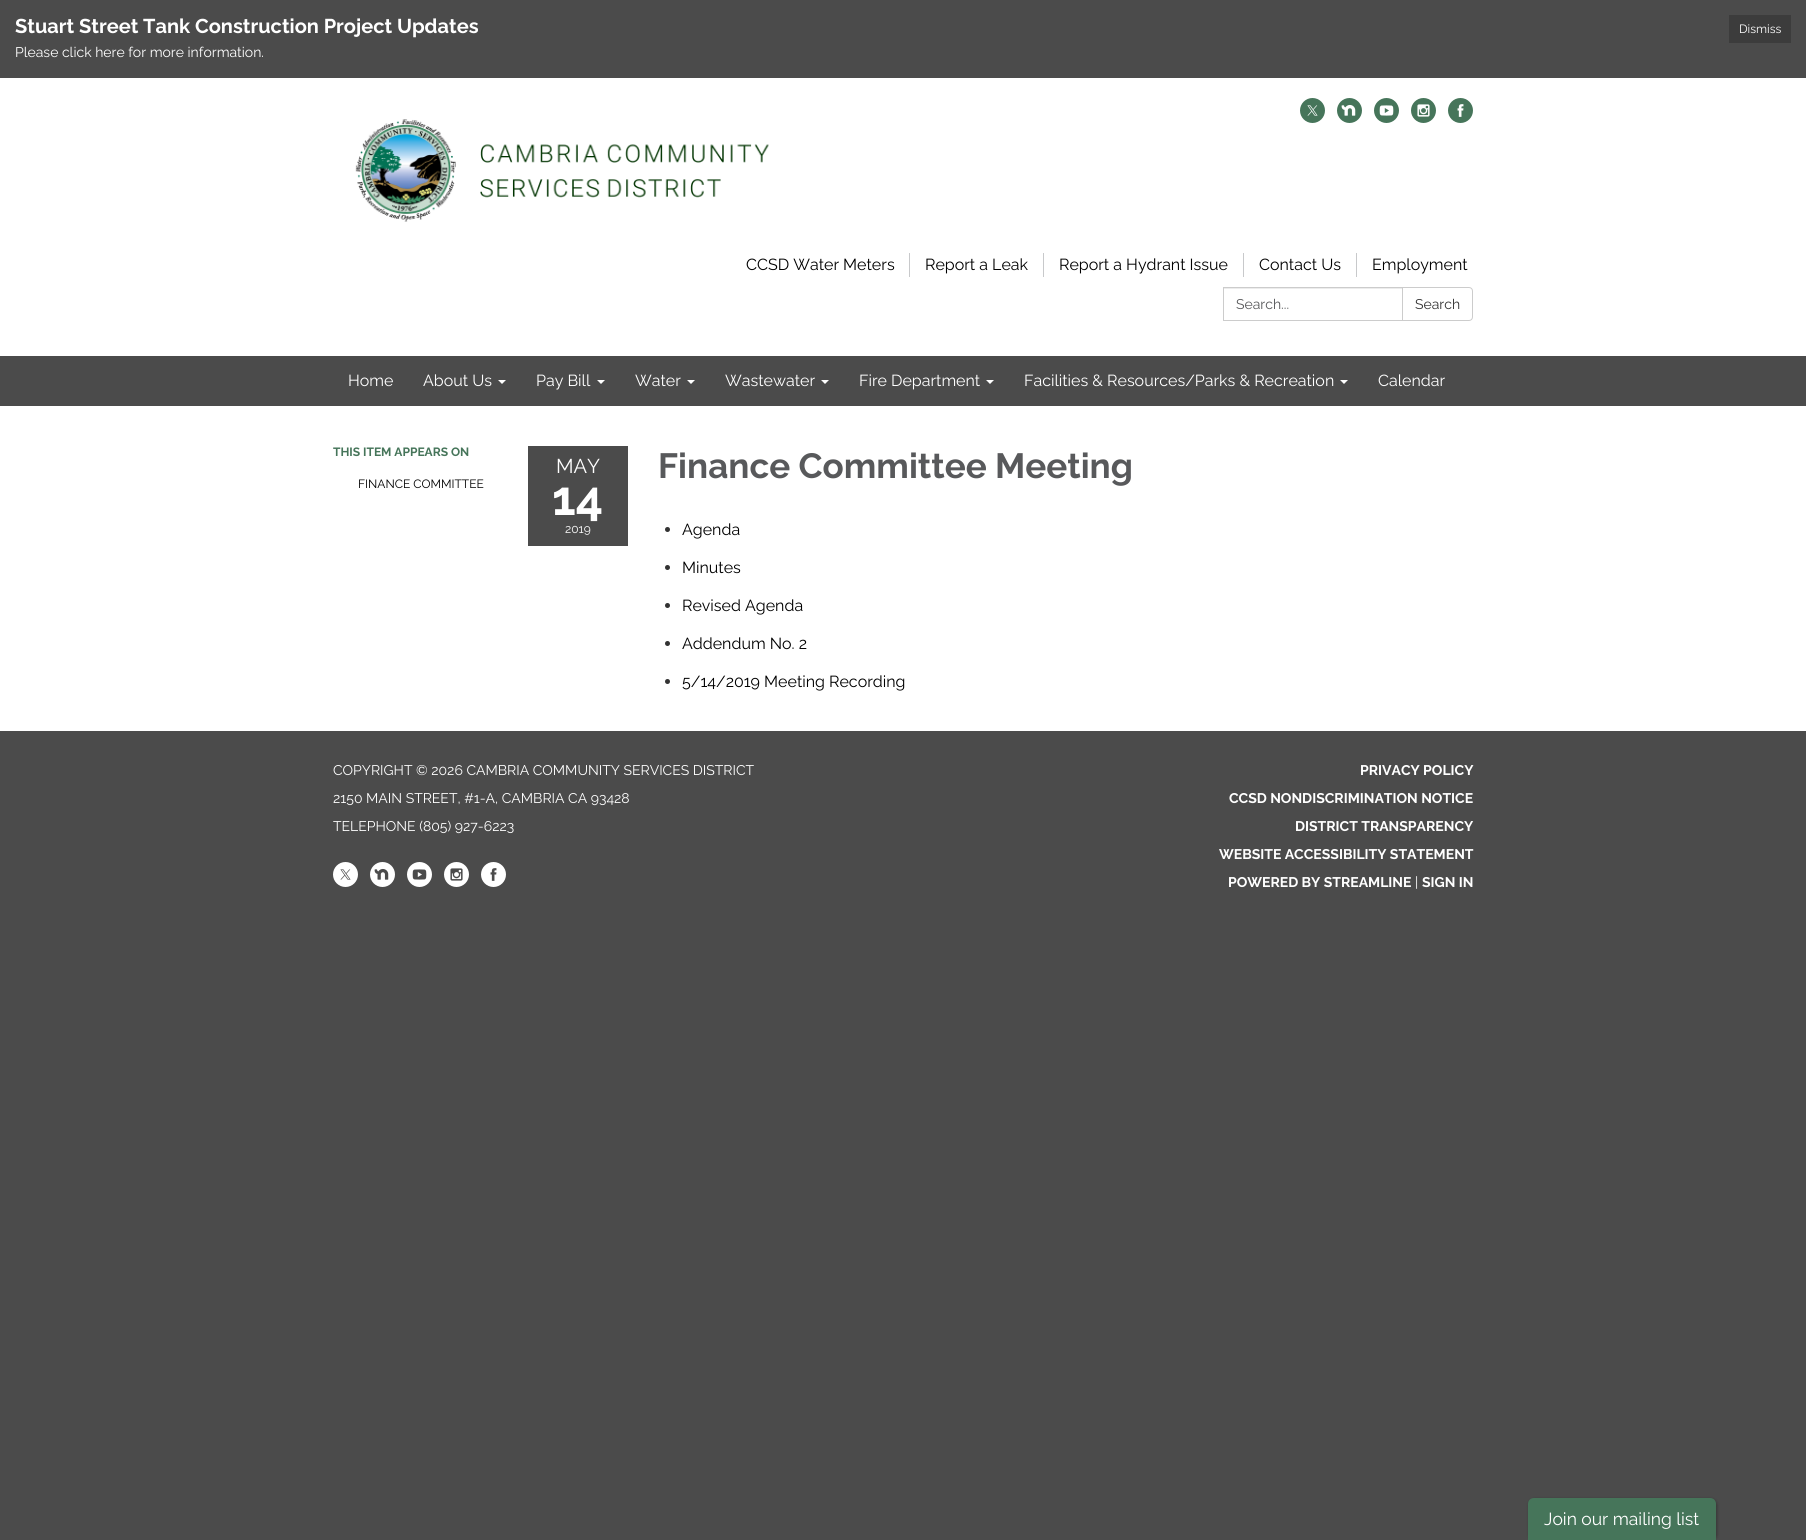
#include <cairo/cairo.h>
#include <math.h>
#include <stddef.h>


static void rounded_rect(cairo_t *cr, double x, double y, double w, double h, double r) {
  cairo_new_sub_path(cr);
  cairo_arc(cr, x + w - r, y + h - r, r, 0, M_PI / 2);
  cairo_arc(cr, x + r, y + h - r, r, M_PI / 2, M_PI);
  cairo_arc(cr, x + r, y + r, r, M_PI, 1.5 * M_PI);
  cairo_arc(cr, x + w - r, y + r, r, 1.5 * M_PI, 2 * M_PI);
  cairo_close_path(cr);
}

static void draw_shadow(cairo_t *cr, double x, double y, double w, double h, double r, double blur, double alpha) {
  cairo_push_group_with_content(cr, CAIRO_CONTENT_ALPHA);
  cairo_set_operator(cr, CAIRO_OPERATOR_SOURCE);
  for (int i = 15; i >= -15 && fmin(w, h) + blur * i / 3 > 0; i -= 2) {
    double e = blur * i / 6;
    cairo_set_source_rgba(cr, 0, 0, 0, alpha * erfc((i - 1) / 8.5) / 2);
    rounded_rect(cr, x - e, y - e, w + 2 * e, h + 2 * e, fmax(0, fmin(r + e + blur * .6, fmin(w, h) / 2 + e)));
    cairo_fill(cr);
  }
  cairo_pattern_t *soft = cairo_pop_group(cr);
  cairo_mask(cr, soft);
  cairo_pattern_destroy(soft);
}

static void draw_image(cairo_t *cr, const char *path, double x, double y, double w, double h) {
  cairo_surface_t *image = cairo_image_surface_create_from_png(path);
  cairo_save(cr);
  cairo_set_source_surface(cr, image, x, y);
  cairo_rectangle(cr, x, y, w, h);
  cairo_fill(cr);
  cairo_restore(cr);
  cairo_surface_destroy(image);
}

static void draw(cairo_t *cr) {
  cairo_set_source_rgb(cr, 75 / 255.0, 75 / 255.0, 75 / 255.0);
  cairo_paint(cr);
  cairo_set_source_rgb(cr, 60 / 255.0, 60 / 255.0, 60 / 255.0);
  cairo_rectangle(cr, 1729, 15, 62, 28);
  cairo_fill(cr);
  cairo_set_source_rgb(cr, 1, 1, 1);
  cairo_rectangle(cr, 0, 78, 1806, 278);
  cairo_fill(cr);
  draw_image(cr, "images/1.png", 1300, 98, 25, 25);
  draw_image(cr, "images/2.png", 1337, 98, 25, 25);
  draw_image(cr, "images/3.png", 1374, 98, 25, 25);
  draw_image(cr, "images/4.png", 1411, 98, 25, 25);
  draw_image(cr, "images/5.png", 1448, 98, 25, 25);
  draw_image(cr, "images/6.png", 355, 119, 414, 103);
  cairo_set_source_rgb(cr, 200 / 255.0, 201 / 255.0, 203 / 255.0);
  cairo_rectangle(cr, 909, 253, 1, 24);
  cairo_fill(cr);
  cairo_rectangle(cr, 1043, 253, 1, 24);
  cairo_fill(cr);
  cairo_rectangle(cr, 1243, 253, 1, 24);
  cairo_fill(cr);
  cairo_rectangle(cr, 1356, 253, 1, 24);
  cairo_fill(cr);
  cairo_set_source_rgb(cr, 236 / 255.0, 236 / 255.0, 236 / 255.0);
  cairo_rectangle(cr, 1224, 288, 178, 1);
  cairo_fill(cr);
  cairo_rectangle(cr, 1223.5, 287.5, 179, 33);
  cairo_set_source_rgb(cr, 204 / 255.0, 204 / 255.0, 204 / 255.0);
  cairo_set_line_width(cr, 1);
  cairo_stroke(cr);
  cairo_set_source_rgb(cr, 1, 1, 1);
  cairo_new_path(cr);
  cairo_move_to(cr, 1402.5, 287.5);
  cairo_line_to(cr, 1469, 287.5);
  cairo_curve_to(cr, 1471, 287.5, 1472.5, 289, 1472.5, 291);
  cairo_line_to(cr, 1472.5, 317);
  cairo_curve_to(cr, 1472.5, 319, 1471, 320.5, 1469, 320.5);
  cairo_line_to(cr, 1402.5, 320.5);
  cairo_close_path(cr);
  cairo_fill_preserve(cr);
  cairo_set_source_rgb(cr, 204 / 255.0, 204 / 255.0, 204 / 255.0);
  cairo_stroke(cr);
  cairo_set_source_rgb(cr, 1, 1, 1);
  cairo_new_path(cr);
  cairo_move_to(cr, 498, 380);
  cairo_line_to(cr, 506, 380);
  cairo_line_to(cr, 502, 384);
  cairo_close_path(cr);
  cairo_fill(cr);
  cairo_new_path(cr);
  cairo_move_to(cr, 597, 380);
  cairo_line_to(cr, 605, 380);
  cairo_line_to(cr, 601, 384);
  cairo_close_path(cr);
  cairo_fill(cr);
  cairo_new_path(cr);
  cairo_move_to(cr, 687, 380);
  cairo_line_to(cr, 695, 380);
  cairo_line_to(cr, 691, 384);
  cairo_close_path(cr);
  cairo_fill(cr);
  cairo_new_path(cr);
  cairo_move_to(cr, 821, 380);
  cairo_line_to(cr, 829, 380);
  cairo_line_to(cr, 825, 384);
  cairo_close_path(cr);
  cairo_fill(cr);
  cairo_new_path(cr);
  cairo_move_to(cr, 986, 380);
  cairo_line_to(cr, 994, 380);
  cairo_line_to(cr, 990, 384);
  cairo_close_path(cr);
  cairo_fill(cr);
  cairo_new_path(cr);
  cairo_move_to(cr, 1340, 380);
  cairo_line_to(cr, 1348, 380);
  cairo_line_to(cr, 1344, 384);
  cairo_close_path(cr);
  cairo_fill(cr);
  cairo_rectangle(cr, 0, 406, 1806, 325);
  cairo_fill(cr);
  cairo_set_source_rgb(cr, 75 / 255.0, 75 / 255.0, 75 / 255.0);
  cairo_rectangle(cr, 528, 446, 100, 100);
  cairo_fill(cr);
  cairo_set_source_rgb(cr, 51 / 255.0, 51 / 255.0, 51 / 255.0);
  cairo_arc(cr, 667.5, 529.5, 2.5, 0, 2 * M_PI);
  cairo_fill(cr);
  cairo_arc(cr, 667.5, 567.5, 2.5, 0, 2 * M_PI);
  cairo_fill(cr);
  cairo_arc(cr, 667.5, 605.5, 2.5, 0, 2 * M_PI);
  cairo_fill(cr);
  cairo_arc(cr, 667.5, 643.5, 2.5, 0, 2 * M_PI);
  cairo_fill(cr);
  cairo_arc(cr, 667.5, 681.5, 2.5, 0, 2 * M_PI);
  cairo_fill(cr);
  draw_image(cr, "images/7.png", 333, 862, 25, 25);
  draw_image(cr, "images/8.png", 370, 862, 25, 25);
  draw_image(cr, "images/9.png", 407, 862, 25, 25);
  draw_image(cr, "images/10.png", 444, 862, 25, 25);
  draw_image(cr, "images/11.png", 481, 862, 25, 25);
  cairo_set_source_rgb(cr, 0, 0, 0);
  draw_shadow(cr, 1529, 1499, 188, 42, 6, 1.5, 0.3);
  cairo_set_source_rgb(cr, 70 / 255.0, 117 / 255.0, 90 / 255.0);
  cairo_new_path(cr);
  cairo_move_to(cr, 1534, 1498);
  cairo_line_to(cr, 1710, 1498);
  cairo_curve_to(cr, 1713.5, 1498, 1716, 1500.5, 1716, 1504);
  cairo_line_to(cr, 1716, 1540);
  cairo_line_to(cr, 1528, 1540);
  cairo_line_to(cr, 1528, 1504);
  cairo_curve_to(cr, 1528, 1500.5, 1530.5, 1498, 1534, 1498);
  cairo_close_path(cr);
  cairo_fill(cr);
  cairo_select_font_face(cr, "Raleway", CAIRO_FONT_SLANT_NORMAL, CAIRO_FONT_WEIGHT_BOLD);
  cairo_set_font_size(cr, 20);
  cairo_set_source_rgb(cr, 1, 1, 1);
  cairo_move_to(cr, 15, 33);
  cairo_show_text(cr, "Stuart Street Tank Construction Project Updates");
  cairo_select_font_face(cr, "Raleway", CAIRO_FONT_SLANT_NORMAL, CAIRO_FONT_WEIGHT_NORMAL);
  cairo_set_font_size(cr, 12);
  cairo_move_to(cr, 1739, 33);
  cairo_show_text(cr, "Dismiss");
  cairo_set_font_size(cr, 14);
  cairo_move_to(cr, 15, 57);
  cairo_show_text(cr, "Please click here for more information.");
  cairo_set_font_size(cr, 16);
  cairo_set_source_rgb(cr, 0, 0, 0);
  cairo_move_to(cr, 746, 270);
  cairo_show_text(cr, "CCSD Water Meters");
  cairo_move_to(cr, 925, 270);
  cairo_show_text(cr, "Report a Leak");
  cairo_move_to(cr, 1059, 270);
  cairo_show_text(cr, "Report a Hydrant Issue");
  cairo_move_to(cr, 1259, 270);
  cairo_show_text(cr, "Contact Us");
  cairo_move_to(cr, 1372, 270);
  cairo_show_text(cr, "Employment");
  cairo_set_font_size(cr, 14);
  cairo_set_source_rgb(cr, 88 / 255.0, 89 / 255.0, 91 / 255.0);
  cairo_move_to(cr, 1236, 309);
  cairo_show_text(cr, "Search...");
  cairo_set_source_rgb(cr, 51 / 255.0, 51 / 255.0, 51 / 255.0);
  cairo_move_to(cr, 1415, 309);
  cairo_show_text(cr, "Search");
  cairo_set_font_size(cr, 16);
  cairo_set_source_rgb(cr, 1, 1, 1);
  cairo_move_to(cr, 348, 386);
  cairo_show_text(cr, "Home");
  cairo_move_to(cr, 423, 386);
  cairo_show_text(cr, "About Us");
  cairo_move_to(cr, 536, 386);
  cairo_show_text(cr, "Pay Bill");
  cairo_move_to(cr, 635, 386);
  cairo_show_text(cr, "Water");
  cairo_move_to(cr, 725, 386);
  cairo_show_text(cr, "Wastewater");
  cairo_move_to(cr, 859, 386);
  cairo_show_text(cr, "Fire Department");
  cairo_move_to(cr, 1024, 386);
  cairo_show_text(cr, "Facilities & Resources/Parks & Recreation");
  cairo_move_to(cr, 1378, 386);
  cairo_show_text(cr, "Calendar");
  cairo_select_font_face(cr, "Raleway", CAIRO_FONT_SLANT_NORMAL, CAIRO_FONT_WEIGHT_BOLD);
  cairo_set_font_size(cr, 12);
  cairo_set_source_rgb(cr, 70 / 255.0, 117 / 255.0, 90 / 255.0);
  cairo_move_to(cr, 333, 456);
  cairo_show_text(cr, "THIS ITEM APPEARS ON");
  cairo_select_font_face(cr, "Raleway", CAIRO_FONT_SLANT_NORMAL, CAIRO_FONT_WEIGHT_NORMAL);
  cairo_set_source_rgb(cr, 0, 0, 0);
  cairo_move_to(cr, 358, 488);
  cairo_show_text(cr, "FINANCE COMMITTEE");
  cairo_set_font_size(cr, 20);
  cairo_set_source_rgb(cr, 1, 1, 1);
  cairo_move_to(cr, 556, 473);
  cairo_show_text(cr, "MAY");
  cairo_select_font_face(cr, "Raleway", CAIRO_FONT_SLANT_NORMAL, CAIRO_FONT_WEIGHT_BOLD);
  cairo_set_font_size(cr, 48);
  cairo_move_to(cr, 552, 515);
  cairo_show_text(cr, "14");
  cairo_select_font_face(cr, "Raleway", CAIRO_FONT_SLANT_NORMAL, CAIRO_FONT_WEIGHT_NORMAL);
  cairo_set_font_size(cr, 12);
  cairo_move_to(cr, 565, 533);
  cairo_show_text(cr, "2019");
  cairo_select_font_face(cr, "Raleway", CAIRO_FONT_SLANT_NORMAL, CAIRO_FONT_WEIGHT_BOLD);
  cairo_set_font_size(cr, 35);
  cairo_set_source_rgb(cr, 88 / 255.0, 89 / 255.0, 91 / 255.0);
  cairo_move_to(cr, 658, 478);
  cairo_show_text(cr, "Finance Committee Meeting");
  cairo_select_font_face(cr, "Raleway", CAIRO_FONT_SLANT_NORMAL, CAIRO_FONT_WEIGHT_NORMAL);
  cairo_set_font_size(cr, 16);
  cairo_set_source_rgb(cr, 0, 0, 0);
  cairo_move_to(cr, 682, 535);
  cairo_show_text(cr, "Agenda");
  cairo_move_to(cr, 682, 573);
  cairo_show_text(cr, "Minutes");
  cairo_move_to(cr, 682, 611);
  cairo_show_text(cr, "Revised Agenda");
  cairo_move_to(cr, 682, 649);
  cairo_show_text(cr, "Addendum No. 2");
  cairo_move_to(cr, 682, 687);
  cairo_show_text(cr, "5/14/2019 Meeting Recording");
  cairo_set_font_size(cr, 14);
  cairo_set_source_rgb(cr, 1, 1, 1);
  cairo_move_to(cr, 333, 775);
  cairo_show_text(cr, "COPYRIGHT © 2026 CAMBRIA COMMUNITY SERVICES DISTRICT");
  cairo_move_to(cr, 333, 803);
  cairo_show_text(cr, "2150 MAIN STREET, #1-A, CAMBRIA CA 93428");
  cairo_move_to(cr, 333, 831);
  cairo_show_text(cr, "TELEPHONE (805) 927-6223");
  cairo_select_font_face(cr, "Raleway", CAIRO_FONT_SLANT_NORMAL, CAIRO_FONT_WEIGHT_BOLD);
  cairo_move_to(cr, 1360, 775);
  cairo_show_text(cr, "PRIVACY POLICY");
  cairo_move_to(cr, 1229, 803);
  cairo_show_text(cr, "CCSD NONDISCRIMINATION NOTICE");
  cairo_move_to(cr, 1295, 831);
  cairo_show_text(cr, "DISTRICT TRANSPARENCY");
  cairo_move_to(cr, 1219, 859);
  cairo_show_text(cr, "WEBSITE ACCESSIBILITY STATEMENT");
  cairo_move_to(cr, 1228, 887);
  cairo_show_text(cr, "POWERED BY STREAMLINE");
  cairo_select_font_face(cr, "Raleway", CAIRO_FONT_SLANT_NORMAL, CAIRO_FONT_WEIGHT_NORMAL);
  cairo_move_to(cr, 1415, 887);
  cairo_show_text(cr, "|");
  cairo_select_font_face(cr, "Raleway", CAIRO_FONT_SLANT_NORMAL, CAIRO_FONT_WEIGHT_BOLD);
  cairo_move_to(cr, 1422, 887);
  cairo_show_text(cr, "SIGN IN");
  cairo_select_font_face(cr, "Raleway", CAIRO_FONT_SLANT_NORMAL, CAIRO_FONT_WEIGHT_NORMAL);
  cairo_set_font_size(cr, 17.5);
  cairo_move_to(cr, 1544, 1525);
  cairo_show_text(cr, "Join our mailing list");
}

int main(void) {
  cairo_surface_t *surface = cairo_image_surface_create(CAIRO_FORMAT_RGB24, 1806, 1540);
  cairo_t *cr = cairo_create(surface);
  cairo_font_options_t *options = cairo_font_options_create();
  cairo_font_options_set_hint_metrics(options, CAIRO_HINT_METRICS_OFF);
  cairo_font_options_set_hint_style(options, CAIRO_HINT_STYLE_NONE);
  cairo_set_font_options(cr, options);
  cairo_set_miter_limit(cr, 4);
  draw(cr);
  cairo_surface_write_to_png(surface, "out.png");
  cairo_font_options_destroy(options);
  cairo_destroy(cr);
  cairo_surface_destroy(surface);
  return 0;
}
